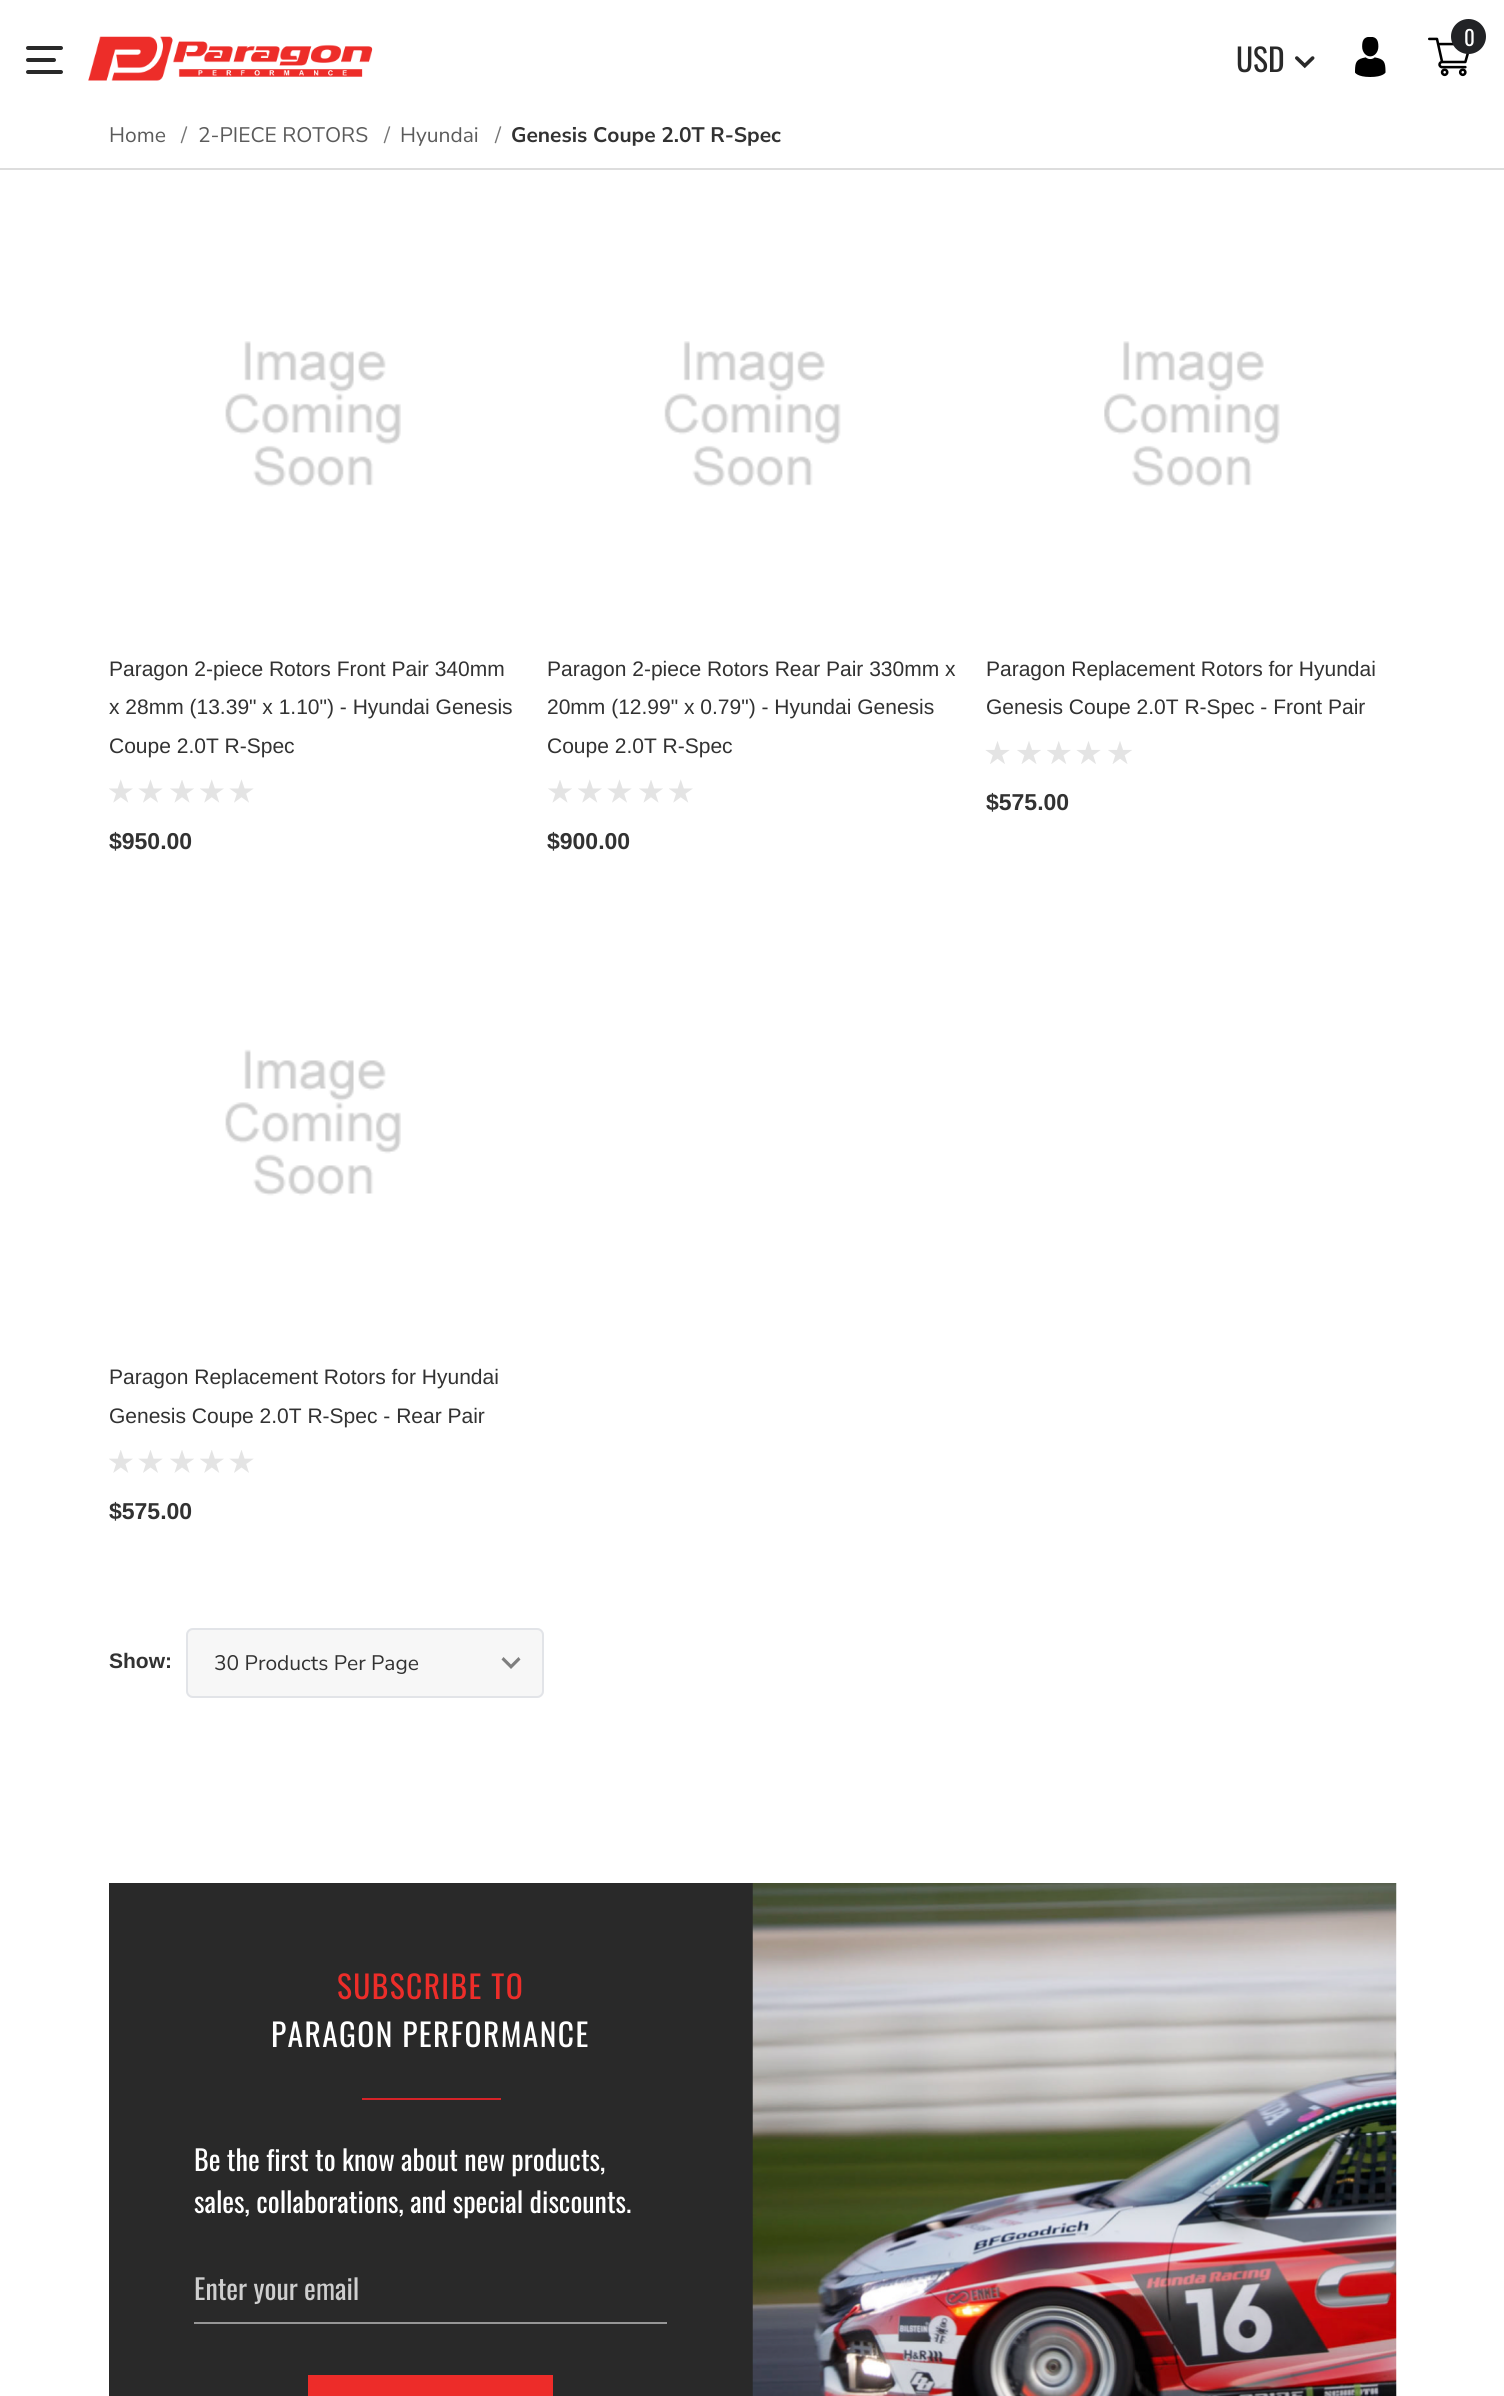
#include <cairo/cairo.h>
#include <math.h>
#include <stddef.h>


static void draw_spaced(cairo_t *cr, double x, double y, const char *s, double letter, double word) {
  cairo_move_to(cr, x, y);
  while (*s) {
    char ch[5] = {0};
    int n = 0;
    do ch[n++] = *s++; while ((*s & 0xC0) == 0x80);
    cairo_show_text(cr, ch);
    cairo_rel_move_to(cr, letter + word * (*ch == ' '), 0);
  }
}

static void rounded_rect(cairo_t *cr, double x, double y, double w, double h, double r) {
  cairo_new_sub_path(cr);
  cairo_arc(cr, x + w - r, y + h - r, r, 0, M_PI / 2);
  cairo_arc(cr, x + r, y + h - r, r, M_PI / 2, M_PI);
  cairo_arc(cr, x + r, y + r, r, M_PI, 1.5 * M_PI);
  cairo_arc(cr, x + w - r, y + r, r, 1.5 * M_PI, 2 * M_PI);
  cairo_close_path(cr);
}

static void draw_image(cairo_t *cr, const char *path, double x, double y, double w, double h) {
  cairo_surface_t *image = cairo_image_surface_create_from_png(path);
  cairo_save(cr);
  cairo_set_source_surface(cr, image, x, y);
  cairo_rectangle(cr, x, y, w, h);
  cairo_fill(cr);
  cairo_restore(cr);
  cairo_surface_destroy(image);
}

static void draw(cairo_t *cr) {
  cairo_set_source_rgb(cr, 1, 1, 1);
  cairo_paint(cr);
  cairo_set_source_rgb(cr, 41 / 255.0, 41 / 255.0, 41 / 255.0);
  rounded_rect(cr, 26, 58, 30, 4, 2);
  cairo_fill(cr);
  rounded_rect(cr, 26, 46, 37, 4, 2);
  cairo_fill(cr);
  rounded_rect(cr, 26, 70, 37, 4, 2);
  cairo_fill(cr);
  draw_image(cr, "images/1.png", 88, 36, 285, 45);
  draw_image(cr, "images/2.png", 1295, 56, 20, 13);
  draw_image(cr, "images/3.png", 1355, 37, 31, 40);
  draw_image(cr, "images/4.png", 1428, 37, 42, 40);
  cairo_set_source_rgb(cr, 34 / 255.0, 35 / 255.0, 38 / 255.0);
  cairo_arc(cr, 1468.5, 36.5, 17.5, 0, 2 * M_PI);
  cairo_fill(cr);
  cairo_set_source_rgb(cr, 221 / 255.0, 221 / 255.0, 221 / 255.0);
  cairo_rectangle(cr, 0, 168, 1504, 2);
  cairo_fill(cr);
  draw_image(cr, "images/5.png", 225, 341, 176, 146);
  draw_image(cr, "images/6.png", 109, 779, 24, 24);
  draw_image(cr, "images/7.png", 138, 779, 25, 24);
  draw_image(cr, "images/8.png", 170, 780, 24, 23);
  draw_image(cr, "images/6.png", 200, 779, 24, 24);
  draw_image(cr, "images/7.png", 229, 779, 25, 24);
  draw_image(cr, "images/9.png", 664, 341, 177, 146);
  draw_image(cr, "images/8.png", 548, 780, 24, 23);
  draw_image(cr, "images/6.png", 578, 779, 24, 24);
  draw_image(cr, "images/7.png", 607, 779, 25, 24);
  draw_image(cr, "images/8.png", 639, 780, 24, 23);
  draw_image(cr, "images/6.png", 669, 779, 24, 24);
  draw_image(cr, "images/10.png", 1104, 341, 176, 146);
  draw_image(cr, "images/11.png", 985, 741, 25, 23);
  draw_image(cr, "images/12.png", 1017, 741, 24, 23);
  draw_image(cr, "images/13.png", 1047, 741, 24, 23);
  draw_image(cr, "images/11.png", 1076, 741, 25, 23);
  draw_image(cr, "images/12.png", 1108, 741, 24, 23);
  draw_image(cr, "images/14.png", 225, 1049, 176, 147);
  draw_image(cr, "images/15.png", 109, 1450, 24, 23);
  draw_image(cr, "images/16.png", 138, 1450, 25, 23);
  draw_image(cr, "images/17.png", 170, 1450, 24, 23);
  draw_image(cr, "images/15.png", 200, 1450, 24, 23);
  draw_image(cr, "images/16.png", 229, 1450, 25, 23);
  cairo_set_source_rgb(cr, 247 / 255.0, 247 / 255.0, 247 / 255.0);
  rounded_rect(cr, 186, 1628, 358, 70, 7);
  cairo_fill(cr);
  cairo_set_source_rgb(cr, 127 / 255.0, 127 / 255.0, 127 / 255.0);
  cairo_new_path(cr);
  cairo_move_to(cr, 518.5, 1657);
  cairo_line_to(cr, 511, 1664.5);
  cairo_line_to(cr, 503.5, 1657);
  cairo_line_to(cr, 501.5, 1659.5);
  cairo_line_to(cr, 511, 1669);
  cairo_line_to(cr, 520.5, 1659.5);
  cairo_close_path(cr);
  cairo_fill(cr);
  rounded_rect(cr, 187, 1629, 356, 68, 6);
  cairo_set_source_rgb(cr, 226 / 255.0, 228 / 255.0, 232 / 255.0);
  cairo_stroke(cr);
  cairo_set_source_rgb(cr, 41 / 255.0, 41 / 255.0, 41 / 255.0);
  cairo_rectangle(cr, 109, 1883, 644, 513);
  cairo_fill(cr);
  cairo_set_source_rgb(cr, 213 / 255.0, 35 / 255.0, 40 / 255.0);
  cairo_rectangle(cr, 362, 2098, 139, 2);
  cairo_fill(cr);
  cairo_set_source_rgb(cr, 150 / 255.0, 150 / 255.0, 150 / 255.0);
  cairo_rectangle(cr, 194, 2322, 473, 2);
  cairo_fill(cr);
  cairo_set_source_rgb(cr, 237 / 255.0, 44 / 255.0, 41 / 255.0);
  cairo_rectangle(cr, 308, 2375, 245, 21);
  cairo_fill(cr);
  draw_image(cr, "images/18.png", 752, 1883, 645, 513);
  cairo_select_font_face(cr, "Oswald", CAIRO_FONT_SLANT_NORMAL, CAIRO_FONT_WEIGHT_NORMAL);
  cairo_set_font_size(cr, 31.5);
  cairo_set_source_rgb(cr, 41 / 255.0, 41 / 255.0, 41 / 255.0);
  cairo_move_to(cr, 1236, 72);
  cairo_show_text(cr, "USD");
  cairo_set_font_size(cr, 21);
  cairo_set_source_rgb(cr, 1, 1, 1);
  cairo_move_to(cr, 1464, 46);
  cairo_show_text(cr, "0");
  cairo_select_font_face(cr, "Nunito Sans", CAIRO_FONT_SLANT_NORMAL, CAIRO_FONT_WEIGHT_NORMAL);
  cairo_set_source_rgb(cr, 91 / 255.0, 91 / 255.0, 91 / 255.0);
  cairo_move_to(cr, 109, 142);
  cairo_show_text(cr, "Home");
  cairo_set_source_rgb(cr, 117 / 255.0, 117 / 255.0, 117 / 255.0);
  cairo_move_to(cr, 181, 142);
  cairo_show_text(cr, "/");
  cairo_set_source_rgb(cr, 91 / 255.0, 91 / 255.0, 91 / 255.0);
  cairo_move_to(cr, 198, 142);
  cairo_show_text(cr, "2-PIECE ROTORS");
  cairo_set_source_rgb(cr, 117 / 255.0, 117 / 255.0, 117 / 255.0);
  cairo_move_to(cr, 384, 142);
  cairo_show_text(cr, "/");
  cairo_set_source_rgb(cr, 91 / 255.0, 91 / 255.0, 91 / 255.0);
  cairo_move_to(cr, 400, 142);
  cairo_show_text(cr, "Hyundai");
  cairo_set_source_rgb(cr, 117 / 255.0, 117 / 255.0, 117 / 255.0);
  cairo_move_to(cr, 495, 142);
  cairo_show_text(cr, "/");
  cairo_select_font_face(cr, "Nunito Sans", CAIRO_FONT_SLANT_NORMAL, CAIRO_FONT_WEIGHT_BOLD);
  cairo_set_source_rgb(cr, 50 / 255.0, 50 / 255.0, 50 / 255.0);
  cairo_move_to(cr, 511, 142);
  cairo_show_text(cr, "Genesis Coupe 2.0T R-Spec");
  cairo_select_font_face(cr, "Arimo", CAIRO_FONT_SLANT_NORMAL, CAIRO_FONT_WEIGHT_NORMAL);
  cairo_move_to(cr, 109, 676);
  cairo_show_text(cr, "Paragon 2-piece Rotors Front Pair 340mm");
  cairo_move_to(cr, 109, 714);
  cairo_show_text(cr, "x 28mm (13.39\" x 1.10\") - Hyundai Genesis");
  cairo_move_to(cr, 109, 753);
  cairo_show_text(cr, "Coupe 2.0T R-Spec");
  cairo_select_font_face(cr, "Arimo", CAIRO_FONT_SLANT_NORMAL, CAIRO_FONT_WEIGHT_BOLD);
  cairo_set_font_size(cr, 23);
  cairo_move_to(cr, 109, 849);
  cairo_show_text(cr, "$950.00");
  cairo_select_font_face(cr, "Arimo", CAIRO_FONT_SLANT_NORMAL, CAIRO_FONT_WEIGHT_NORMAL);
  cairo_set_font_size(cr, 21);
  cairo_move_to(cr, 547, 676);
  cairo_show_text(cr, "Paragon 2-piece Rotors Rear Pair 330mm x");
  cairo_move_to(cr, 547, 714);
  cairo_show_text(cr, "20mm (12.99\" x 0.79\") - Hyundai Genesis");
  cairo_move_to(cr, 547, 753);
  cairo_show_text(cr, "Coupe 2.0T R-Spec");
  cairo_select_font_face(cr, "Arimo", CAIRO_FONT_SLANT_NORMAL, CAIRO_FONT_WEIGHT_BOLD);
  cairo_set_font_size(cr, 23);
  cairo_move_to(cr, 547, 849);
  cairo_show_text(cr, "$900.00");
  cairo_select_font_face(cr, "Arimo", CAIRO_FONT_SLANT_NORMAL, CAIRO_FONT_WEIGHT_NORMAL);
  cairo_set_font_size(cr, 21);
  cairo_move_to(cr, 986, 676);
  cairo_show_text(cr, "Paragon Replacement Rotors for Hyundai");
  cairo_move_to(cr, 986, 714);
  cairo_show_text(cr, "Genesis Coupe 2.0T R-Spec - Front Pair");
  cairo_select_font_face(cr, "Arimo", CAIRO_FONT_SLANT_NORMAL, CAIRO_FONT_WEIGHT_BOLD);
  cairo_set_font_size(cr, 23);
  cairo_move_to(cr, 986, 810);
  cairo_show_text(cr, "$575.00");
  cairo_select_font_face(cr, "Arimo", CAIRO_FONT_SLANT_NORMAL, CAIRO_FONT_WEIGHT_NORMAL);
  cairo_set_font_size(cr, 21);
  cairo_move_to(cr, 109, 1384);
  cairo_show_text(cr, "Paragon Replacement Rotors for Hyundai");
  cairo_move_to(cr, 109, 1423);
  cairo_show_text(cr, "Genesis Coupe 2.0T R-Spec - Rear Pair");
  cairo_select_font_face(cr, "Arimo", CAIRO_FONT_SLANT_NORMAL, CAIRO_FONT_WEIGHT_BOLD);
  cairo_set_font_size(cr, 23);
  cairo_move_to(cr, 109, 1519);
  cairo_show_text(cr, "$575.00");
  cairo_set_font_size(cr, 21);
  cairo_move_to(cr, 109, 1668);
  cairo_show_text(cr, "Show:");
  cairo_select_font_face(cr, "Nunito Sans", CAIRO_FONT_SLANT_NORMAL, CAIRO_FONT_WEIGHT_NORMAL);
  cairo_move_to(cr, 214, 1670);
  cairo_show_text(cr, "30 Products Per Page");
  cairo_select_font_face(cr, "Oswald", CAIRO_FONT_SLANT_NORMAL, CAIRO_FONT_WEIGHT_NORMAL);
  cairo_set_font_size(cr, 31.5);
  cairo_set_source_rgb(cr, 237 / 255.0, 45 / 255.0, 41 / 255.0);
  draw_spaced(cr, 337, 1999, "SUBSCRIBE TO", 1.4, 0);
  cairo_set_source_rgb(cr, 1, 1, 1);
  draw_spaced(cr, 271, 2047, "PARAGON PERFORMANCE", 1.4, 0);
  cairo_set_font_size(cr, 28);
  cairo_move_to(cr, 194, 2171);
  cairo_show_text(cr, "Be the first to know about new products,");
  cairo_move_to(cr, 194, 2213);
  cairo_show_text(cr, "sales, collaborations, and special discounts.");
  cairo_set_source_rgb(cr, 206 / 255.0, 206 / 255.0, 206 / 255.0);
  cairo_move_to(cr, 194, 2300);
  cairo_show_text(cr, "Enter your email");
}

int main(void) {
  cairo_surface_t *surface = cairo_image_surface_create(CAIRO_FORMAT_RGB24, 1504, 2396);
  cairo_t *cr = cairo_create(surface);
  cairo_font_options_t *options = cairo_font_options_create();
  cairo_font_options_set_hint_metrics(options, CAIRO_HINT_METRICS_OFF);
  cairo_font_options_set_hint_style(options, CAIRO_HINT_STYLE_NONE);
  cairo_set_font_options(cr, options);
  cairo_set_miter_limit(cr, 4);
  draw(cr);
  cairo_surface_write_to_png(surface, "out.png");
  cairo_font_options_destroy(options);
  cairo_destroy(cr);
  cairo_surface_destroy(surface);
  return 0;
}
